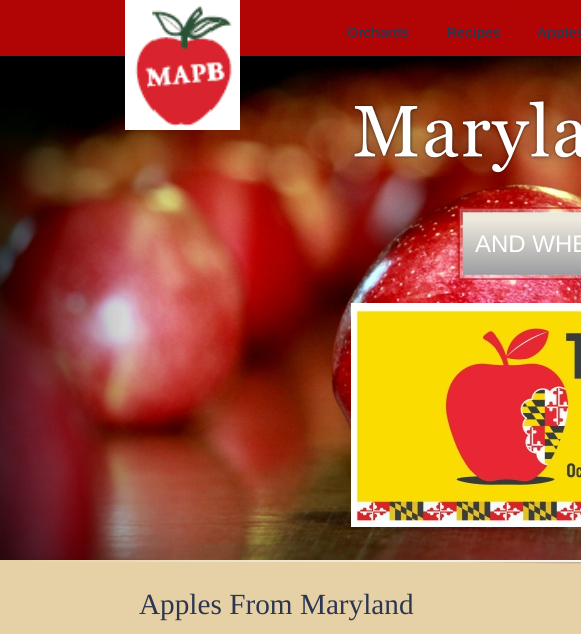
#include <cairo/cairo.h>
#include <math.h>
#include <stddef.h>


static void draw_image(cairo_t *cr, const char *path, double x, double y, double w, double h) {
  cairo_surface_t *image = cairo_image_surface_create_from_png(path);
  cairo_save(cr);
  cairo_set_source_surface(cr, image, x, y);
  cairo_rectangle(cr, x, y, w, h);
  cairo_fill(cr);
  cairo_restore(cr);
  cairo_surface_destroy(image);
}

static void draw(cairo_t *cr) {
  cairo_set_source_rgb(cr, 230 / 255.0, 209 / 255.0, 166 / 255.0);
  cairo_paint(cr);
  draw_image(cr, "images/1.png", 0, 0, 581, 560);
  cairo_set_source_rgba(cr, 179 / 255.0, 5 / 255.0, 5 / 255.0, 0.88);
  cairo_rectangle(cr, 0, 0, 581, 56);
  cairo_fill(cr);
  cairo_rectangle(cr, 0, 0, 581, 56);
  cairo_fill(cr);
  draw_image(cr, "images/2.png", 125, 0, 115, 130);
  draw_image(cr, "images/3.png", 493, 56, 88, 2);
  draw_image(cr, "images/4.png", 350, 94, 231, 83);
  draw_image(cr, "images/5.png", 458, 207, 123, 73);
  draw_image(cr, "images/6.png", 351, 303, 230, 224);
  draw_image(cr, "images/8.png", 412, 560, 169, 4);
  draw_image(cr, "images/7.png", 30, 560, 551, 2);
  cairo_select_font_face(cr, "Liberation Sans", CAIRO_FONT_SLANT_NORMAL, CAIRO_FONT_WEIGHT_BOLD);
  cairo_set_font_size(cr, 14);
  cairo_set_source_rgb(cr, 44 / 255.0, 54 / 255.0, 81 / 255.0);
  cairo_move_to(cr, 347, 37);
  cairo_show_text(cr, "Orchards");
  cairo_move_to(cr, 447, 37);
  cairo_show_text(cr, "Recipes");
  cairo_move_to(cr, 537, 37);
  cairo_show_text(cr, "Apples");
  cairo_select_font_face(cr, "Liberation Sans", CAIRO_FONT_SLANT_NORMAL, CAIRO_FONT_WEIGHT_NORMAL);
  cairo_set_font_size(cr, 24);
  cairo_set_source_rgb(cr, 1, 1, 1);
  cairo_move_to(cr, 475, 252);
  cairo_show_text(cr, "AND WHE");
  cairo_select_font_face(cr, "Liberation Serif", CAIRO_FONT_SLANT_NORMAL, CAIRO_FONT_WEIGHT_NORMAL);
  cairo_set_font_size(cr, 29.25);
  cairo_set_source_rgb(cr, 44 / 255.0, 54 / 255.0, 81 / 255.0);
  cairo_move_to(cr, 139, 614);
  cairo_show_text(cr, "Apples From Maryland");
}

int main(void) {
  cairo_surface_t *surface = cairo_image_surface_create(CAIRO_FORMAT_RGB24, 581, 634);
  cairo_t *cr = cairo_create(surface);
  cairo_font_options_t *options = cairo_font_options_create();
  cairo_font_options_set_hint_metrics(options, CAIRO_HINT_METRICS_OFF);
  cairo_font_options_set_hint_style(options, CAIRO_HINT_STYLE_NONE);
  cairo_set_font_options(cr, options);
  cairo_set_miter_limit(cr, 4);
  draw(cr);
  cairo_surface_write_to_png(surface, "out.png");
  cairo_font_options_destroy(options);
  cairo_destroy(cr);
  cairo_surface_destroy(surface);
  return 0;
}
